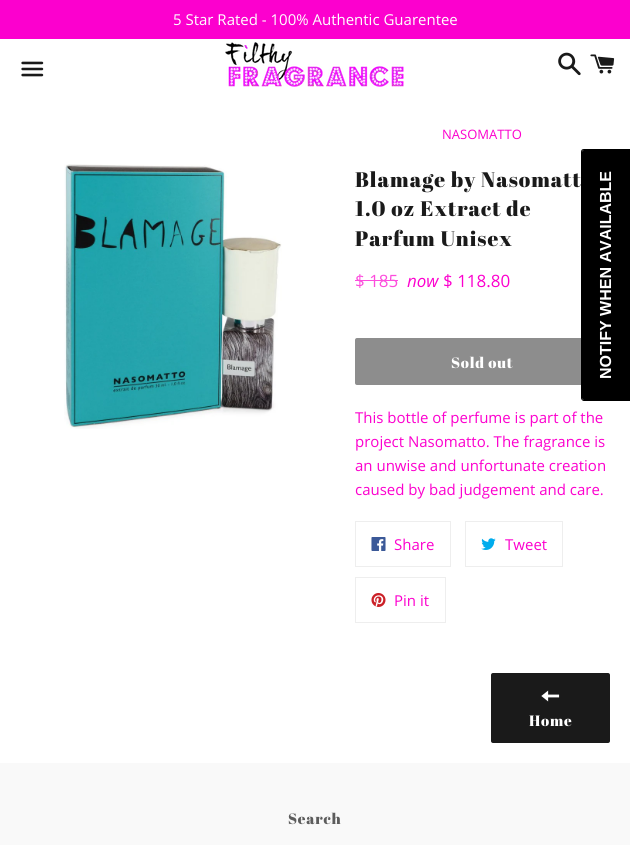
#include <cairo/cairo.h>
#include <math.h>
#include <stddef.h>


static void draw_spaced(cairo_t *cr, double x, double y, const char *s, double letter, double word) {
  cairo_move_to(cr, x, y);
  while (*s) {
    char ch[5] = {0};
    int n = 0;
    do ch[n++] = *s++; while ((*s & 0xC0) == 0x80);
    cairo_show_text(cr, ch);
    cairo_rel_move_to(cr, letter + word * (*ch == ' '), 0);
  }
}

static void rounded_rect(cairo_t *cr, double x, double y, double w, double h, double r) {
  cairo_new_sub_path(cr);
  cairo_arc(cr, x + w - r, y + h - r, r, 0, M_PI / 2);
  cairo_arc(cr, x + r, y + h - r, r, M_PI / 2, M_PI);
  cairo_arc(cr, x + r, y + r, r, M_PI, 1.5 * M_PI);
  cairo_arc(cr, x + w - r, y + r, r, 1.5 * M_PI, 2 * M_PI);
  cairo_close_path(cr);
}

static void draw_image(cairo_t *cr, const char *path, double x, double y, double w, double h) {
  cairo_surface_t *image = cairo_image_surface_create_from_png(path);
  cairo_save(cr);
  cairo_set_source_surface(cr, image, x, y);
  cairo_rectangle(cr, x, y, w, h);
  cairo_fill(cr);
  cairo_restore(cr);
  cairo_surface_destroy(image);
}

static void draw(cairo_t *cr) {
  cairo_set_source_rgb(cr, 1, 1, 1);
  cairo_paint(cr);
  cairo_set_source_rgb(cr, 252 / 255.0, 0, 206 / 255.0);
  cairo_rectangle(cr, 0, 0, 630, 39);
  cairo_fill(cr);
  draw_image(cr, "images/1.png", 21, 61, 23, 16);
  draw_image(cr, "images/2.png", 225, 42, 179, 45);
  draw_image(cr, "images/3.png", 558, 52, 23, 24);
  draw_image(cr, "images/4.png", 590, 54, 25, 20);
  draw_image(cr, "images/5.png", 64, 164, 218, 265);
  cairo_set_source_rgb(cr, 253 / 255.0, 77 / 255.0, 221 / 255.0);
  cairo_rectangle(cr, 355, 280, 43, 1);
  cairo_fill(cr);
  cairo_set_source_rgb(cr, 141 / 255.0, 141 / 255.0, 141 / 255.0);
  rounded_rect(cr, 356, 339, 253, 45, 1);
  cairo_fill_preserve(cr);
  cairo_stroke(cr);
  cairo_rectangle(cr, 355.5, 521.5, 95, 45);
  cairo_set_source_rgb(cr, 238 / 255.0, 238 / 255.0, 238 / 255.0);
  cairo_set_line_width(cr, 1);
  cairo_stroke(cr);
  draw_image(cr, "images/6.png", 371, 537, 15, 14);
  cairo_rectangle(cr, 465.5, 521.5, 97, 45);
  cairo_stroke(cr);
  draw_image(cr, "images/7.png", 481, 538, 15, 12);
  cairo_rectangle(cr, 355.5, 577.5, 90, 45);
  cairo_stroke(cr);
  draw_image(cr, "images/8.png", 371, 593, 15, 14);
  cairo_set_source_rgb(cr, 26 / 255.0, 26 / 255.0, 26 / 255.0);
  rounded_rect(cr, 491, 673, 119, 70, 2);
  cairo_fill(cr);
  draw_image(cr, "images/9.png", 541, 690, 19, 12);
  cairo_set_source_rgb(cr, 0, 0, 0);
  cairo_new_path(cr);
  cairo_move_to(cr, 582, 398);
  cairo_line_to(cr, 582, 152);
  cairo_curve_to(cr, 582, 151, 583, 150, 584, 150);
  cairo_line_to(cr, 630, 150);
  cairo_line_to(cr, 630, 400);
  cairo_line_to(cr, 584, 400);
  cairo_curve_to(cr, 583, 400, 582, 399, 582, 398);
  cairo_close_path(cr);
  cairo_fill(cr);
  cairo_set_fill_rule(cr, CAIRO_FILL_RULE_EVEN_ODD);
  cairo_new_path(cr);
  cairo_move_to(cr, 581, 398);
  cairo_line_to(cr, 581, 152);
  cairo_curve_to(cr, 581, 150, 582, 149, 584, 149);
  cairo_line_to(cr, 630, 149);
  cairo_line_to(cr, 630, 401);
  cairo_line_to(cr, 584, 401);
  cairo_curve_to(cr, 582, 401, 581, 399, 581, 398);
  cairo_close_path(cr);
  cairo_move_to(cr, 582, 398);
  cairo_line_to(cr, 582, 152);
  cairo_curve_to(cr, 582, 151, 583, 150, 584, 150);
  cairo_line_to(cr, 630, 150);
  cairo_line_to(cr, 630, 400);
  cairo_line_to(cr, 584, 400);
  cairo_curve_to(cr, 583, 400, 582, 399, 582, 398);
  cairo_close_path(cr);
  cairo_fill(cr);
  cairo_set_source_rgb(cr, 249 / 255.0, 249 / 255.0, 249 / 255.0);
  cairo_rectangle(cr, 0, 763, 630, 82);
  cairo_fill(cr);
  cairo_select_font_face(cr, "Open Sans", CAIRO_FONT_SLANT_NORMAL, CAIRO_FONT_WEIGHT_NORMAL);
  cairo_set_font_size(cr, 15);
  cairo_set_source_rgb(cr, 1, 1, 1);
  cairo_move_to(cr, 173, 25);
  cairo_show_text(cr, "5 Star Rated - 100% Authentic Guarentee");
  cairo_set_font_size(cr, 13);
  cairo_set_source_rgb(cr, 252 / 255.0, 0, 206 / 255.0);
  cairo_move_to(cr, 442, 139);
  cairo_show_text(cr, "NASOMATTO");
  cairo_select_font_face(cr, "Abril Fatface", CAIRO_FONT_SLANT_NORMAL, CAIRO_FONT_WEIGHT_NORMAL);
  cairo_set_font_size(cr, 21);
  cairo_set_source_rgb(cr, 26 / 255.0, 26 / 255.0, 26 / 255.0);
  draw_spaced(cr, 355, 187, "Blamage by Nasomatt", 1, 0);
  draw_spaced(cr, 355, 216, "1.0 oz Extract de", 1, 0);
  draw_spaced(cr, 355, 246, "Parfum Unisex", 1, 0);
  cairo_select_font_face(cr, "Open Sans", CAIRO_FONT_SLANT_NORMAL, CAIRO_FONT_WEIGHT_NORMAL);
  cairo_set_font_size(cr, 17);
  cairo_set_source_rgb(cr, 253 / 255.0, 77 / 255.0, 221 / 255.0);
  cairo_move_to(cr, 355, 287);
  cairo_show_text(cr, "$ 185");
  cairo_select_font_face(cr, "Open Sans", CAIRO_FONT_SLANT_ITALIC, CAIRO_FONT_WEIGHT_NORMAL);
  cairo_set_source_rgb(cr, 252 / 255.0, 0, 206 / 255.0);
  cairo_move_to(cr, 407, 287);
  cairo_show_text(cr, "now");
  cairo_select_font_face(cr, "Open Sans", CAIRO_FONT_SLANT_NORMAL, CAIRO_FONT_WEIGHT_NORMAL);
  cairo_move_to(cr, 443, 287);
  cairo_show_text(cr, "$ 118.80");
  cairo_select_font_face(cr, "Abril Fatface", CAIRO_FONT_SLANT_NORMAL, CAIRO_FONT_WEIGHT_NORMAL);
  cairo_set_font_size(cr, 15);
  cairo_set_source_rgb(cr, 1, 1, 1);
  draw_spaced(cr, 451, 368, "Sold out", 0.75, 0);
  cairo_select_font_face(cr, "Open Sans", CAIRO_FONT_SLANT_NORMAL, CAIRO_FONT_WEIGHT_NORMAL);
  cairo_set_source_rgb(cr, 252 / 255.0, 0, 206 / 255.0);
  cairo_move_to(cr, 355, 423);
  cairo_show_text(cr, "This bottle of perfume is part of the");
  cairo_move_to(cr, 355, 447);
  cairo_show_text(cr, "project Nasomatto. The fragrance is");
  cairo_move_to(cr, 355, 471);
  cairo_show_text(cr, "an unwise and unfortunate creation");
  cairo_move_to(cr, 355, 495);
  cairo_show_text(cr, "caused by bad judgement and care.");
  cairo_move_to(cr, 394, 550);
  cairo_show_text(cr, "Share");
  cairo_move_to(cr, 505, 550);
  cairo_show_text(cr, "Tweet");
  cairo_move_to(cr, 394, 606);
  cairo_show_text(cr, "Pin it");
  cairo_select_font_face(cr, "Abril Fatface", CAIRO_FONT_SLANT_NORMAL, CAIRO_FONT_WEIGHT_NORMAL);
  cairo_set_source_rgb(cr, 1, 1, 1);
  draw_spaced(cr, 529, 726, "Home", 0.75, 0);
  cairo_select_font_face(cr, "Liberation Sans", CAIRO_FONT_SLANT_NORMAL, CAIRO_FONT_WEIGHT_BOLD);
  cairo_set_font_size(cr, 16);
  cairo_save(cr);
  cairo_translate(cr, 611, 379);
  cairo_rotate(cr, -90 * M_PI / 180);
  cairo_move_to(cr, 0, 0);
  cairo_show_text(cr, "NOTIFY WHEN AVAILABLE");
  cairo_restore(cr);
  cairo_select_font_face(cr, "Abril Fatface", CAIRO_FONT_SLANT_NORMAL, CAIRO_FONT_WEIGHT_NORMAL);
  cairo_set_font_size(cr, 15);
  cairo_set_source_rgb(cr, 92 / 255.0, 92 / 255.0, 92 / 255.0);
  draw_spaced(cr, 288, 824, "Search", 0.75, 0);
}

int main(void) {
  cairo_surface_t *surface = cairo_image_surface_create(CAIRO_FORMAT_RGB24, 630, 845);
  cairo_t *cr = cairo_create(surface);
  cairo_font_options_t *options = cairo_font_options_create();
  cairo_font_options_set_hint_metrics(options, CAIRO_HINT_METRICS_OFF);
  cairo_font_options_set_hint_style(options, CAIRO_HINT_STYLE_NONE);
  cairo_set_font_options(cr, options);
  cairo_set_miter_limit(cr, 4);
  draw(cr);
  cairo_surface_write_to_png(surface, "out.png");
  cairo_font_options_destroy(options);
  cairo_destroy(cr);
  cairo_surface_destroy(surface);
  return 0;
}
